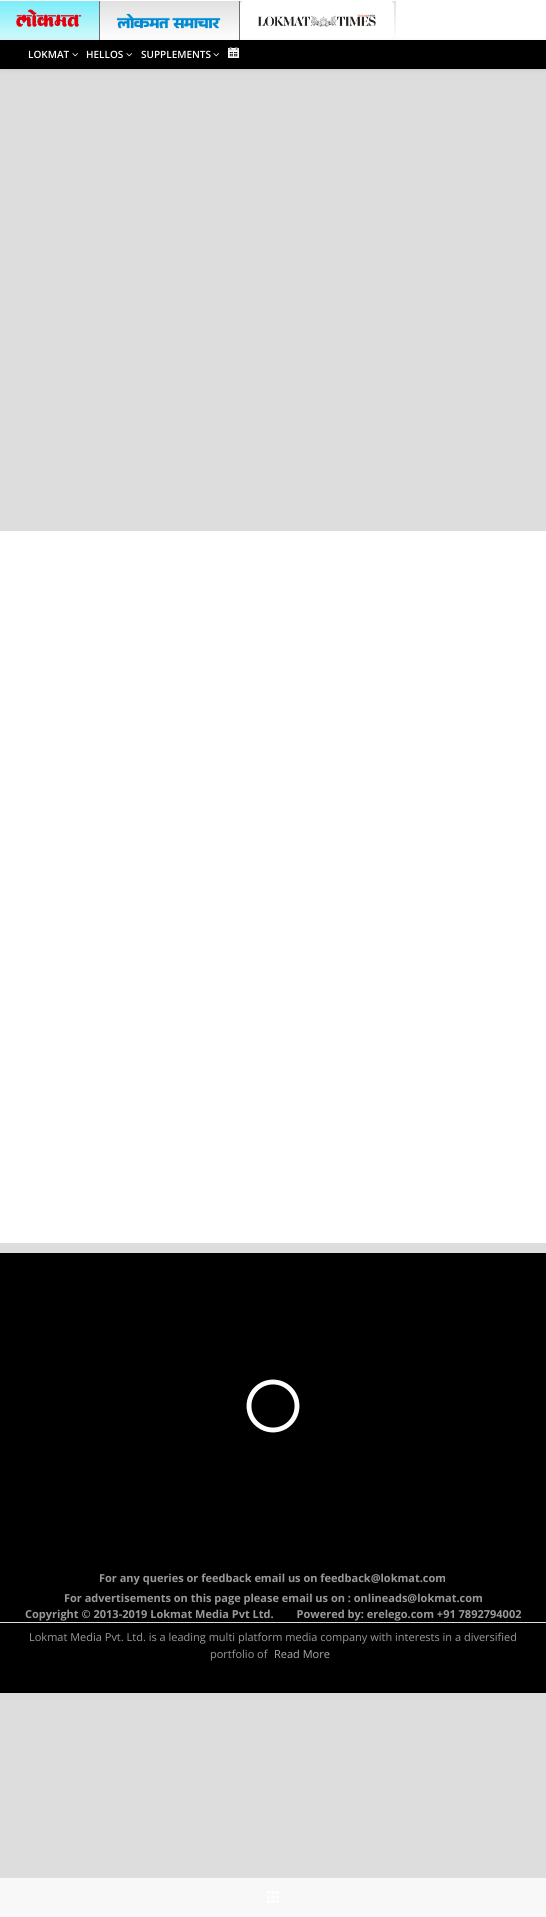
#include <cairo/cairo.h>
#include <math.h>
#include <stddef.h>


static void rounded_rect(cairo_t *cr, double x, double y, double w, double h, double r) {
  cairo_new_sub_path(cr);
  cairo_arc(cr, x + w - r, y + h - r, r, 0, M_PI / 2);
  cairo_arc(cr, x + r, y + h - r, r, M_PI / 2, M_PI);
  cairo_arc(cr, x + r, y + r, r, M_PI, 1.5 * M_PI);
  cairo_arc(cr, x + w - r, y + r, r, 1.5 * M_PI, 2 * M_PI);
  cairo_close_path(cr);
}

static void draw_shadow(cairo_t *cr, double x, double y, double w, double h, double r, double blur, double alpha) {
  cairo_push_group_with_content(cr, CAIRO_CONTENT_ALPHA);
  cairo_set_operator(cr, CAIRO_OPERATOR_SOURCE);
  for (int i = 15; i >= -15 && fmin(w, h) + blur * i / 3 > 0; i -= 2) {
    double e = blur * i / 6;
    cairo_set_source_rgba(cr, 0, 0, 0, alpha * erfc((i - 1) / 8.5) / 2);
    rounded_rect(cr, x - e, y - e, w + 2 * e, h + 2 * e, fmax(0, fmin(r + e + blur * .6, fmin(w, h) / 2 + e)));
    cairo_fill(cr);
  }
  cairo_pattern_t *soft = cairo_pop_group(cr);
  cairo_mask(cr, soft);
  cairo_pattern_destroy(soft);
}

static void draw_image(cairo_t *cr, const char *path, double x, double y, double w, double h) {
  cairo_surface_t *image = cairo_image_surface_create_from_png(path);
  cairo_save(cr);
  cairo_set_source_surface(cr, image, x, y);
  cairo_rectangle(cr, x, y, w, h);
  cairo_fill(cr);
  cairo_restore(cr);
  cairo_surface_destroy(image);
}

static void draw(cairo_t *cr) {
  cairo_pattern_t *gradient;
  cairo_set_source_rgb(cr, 221 / 255.0, 221 / 255.0, 221 / 255.0);
  cairo_paint(cr);
  cairo_set_source_rgb(cr, 1, 1, 1);
  cairo_rectangle(cr, 0, 0, 546, 40);
  cairo_fill(cr);
  gradient = cairo_pattern_create_linear(50, 1, 50, 41);
  cairo_pattern_add_color_stop_rgba(gradient, 0, 122 / 255.0, 236 / 255.0, 249 / 255.0, 1);
  cairo_pattern_add_color_stop_rgba(gradient, 1, 212 / 255.0, 251 / 255.0, 251 / 255.0, 1);
  cairo_set_source(cr, gradient);
  cairo_pattern_destroy(gradient);
  cairo_rectangle(cr, 0, 1, 99, 39);
  cairo_fill(cr);
  cairo_set_source_rgb(cr, 112 / 255.0, 112 / 255.0, 112 / 255.0);
  cairo_rectangle(cr, 99, 1, 1, 40);
  cairo_fill(cr);
  draw_image(cr, "images/1.png", 16, 9, 66, 18);
  gradient = cairo_pattern_create_linear(170, 1, 170, 41);
  cairo_pattern_add_color_stop_rgba(gradient, 0, 225 / 255.0, 225 / 255.0, 225 / 255.0, 1);
  cairo_pattern_add_color_stop_rgba(gradient, 1, 1, 1, 1, 1);
  cairo_set_source(cr, gradient);
  cairo_pattern_destroy(gradient);
  cairo_rectangle(cr, 100, 1, 139, 37);
  cairo_fill(cr);
  cairo_set_source_rgb(cr, 112 / 255.0, 112 / 255.0, 112 / 255.0);
  cairo_rectangle(cr, 239, 1, 1, 40);
  cairo_fill(cr);
  draw_image(cr, "images/2.png", 116, 13, 105, 16);
  gradient = cairo_pattern_create_linear(318, 1, 318, 41);
  cairo_pattern_add_color_stop_rgba(gradient, 0, 225 / 255.0, 225 / 255.0, 225 / 255.0, 1);
  cairo_pattern_add_color_stop_rgba(gradient, 1, 1, 1, 1, 1);
  cairo_set_source(cr, gradient);
  cairo_pattern_destroy(gradient);
  cairo_rectangle(cr, 240, 1, 156, 37);
  cairo_fill(cr);
  cairo_set_source_rgb(cr, 1, 1, 1);
  cairo_new_path(cr);
  cairo_move_to(cr, 244, 1);
  cairo_line_to(cr, 390, 1);
  cairo_curve_to(cr, 392, 1, 394, 3, 394, 5);
  cairo_line_to(cr, 394, 41);
  cairo_line_to(cr, 240, 41);
  cairo_line_to(cr, 240, 5);
  cairo_curve_to(cr, 240, 3, 242, 1, 244, 1);
  cairo_close_path(cr);
  cairo_fill(cr);
  draw_image(cr, "images/3.png", 258, 14, 118, 13);
  cairo_set_source_rgb(cr, 0, 0, 0);
  draw_shadow(cr, 0, 41, 546, 29, 0, 2.5, 0.1);
  cairo_set_source_rgb(cr, 0, 0, 0);
  cairo_rectangle(cr, 0, 40, 546, 29);
  cairo_fill(cr);
  draw_image(cr, "images/4.png", 72, 53, 6, 4);
  draw_image(cr, "images/4.png", 126, 53, 6, 4);
  draw_image(cr, "images/4.png", 213, 53, 6, 4);
  draw_image(cr, "images/5.png", 228, 47, 11, 11);
  cairo_set_source_rgb(cr, 1, 1, 1);
  cairo_rectangle(cr, 0, 531, 546, 712);
  cairo_fill(cr);
  cairo_set_source_rgb(cr, 0, 0, 0);
  cairo_rectangle(cr, 0, 1253, 546, 440);
  cairo_fill(cr);
  cairo_arc(cr, 273, 1406, 24, 0, 2 * M_PI);
  cairo_set_source_rgb(cr, 51 / 255.0, 51 / 255.0, 51 / 255.0);
  cairo_set_line_width(cr, 4.8);
  cairo_stroke(cr);
  cairo_arc(cr, 273, 1406, 24, 0, 2 * M_PI);
  cairo_set_source_rgb(cr, 1, 1, 1);
  cairo_stroke(cr);
  cairo_set_source_rgb(cr, 221 / 255.0, 221 / 255.0, 221 / 255.0);
  cairo_rectangle(cr, 0, 1622, 546, 1);
  cairo_fill(cr);
  cairo_set_source_rgb(cr, 248 / 255.0, 248 / 255.0, 248 / 255.0);
  cairo_rectangle(cr, 0, 1878, 546, 39);
  cairo_fill(cr);
  draw_image(cr, "images/6.png", 267, 1891, 12, 12);
  cairo_select_font_face(cr, "Open Sans SemiBold", CAIRO_FONT_SLANT_NORMAL, CAIRO_FONT_WEIGHT_NORMAL);
  cairo_set_font_size(cr, 10);
  cairo_set_source_rgb(cr, 1, 1, 1);
  cairo_move_to(cr, 28, 58);
  cairo_show_text(cr, "LOKMAT");
  cairo_move_to(cr, 86, 58);
  cairo_show_text(cr, "HELLOS");
  cairo_move_to(cr, 141, 58);
  cairo_show_text(cr, "SUPPLEMENTS");
  cairo_select_font_face(cr, "Open Sans", CAIRO_FONT_SLANT_NORMAL, CAIRO_FONT_WEIGHT_BOLD);
  cairo_set_font_size(cr, 11);
  cairo_set_source_rgb(cr, 153 / 255.0, 153 / 255.0, 153 / 255.0);
  cairo_move_to(cr, 99, 1582);
  cairo_show_text(cr, "For any queries or feedback email us on feedback@lokmat.com");
  cairo_move_to(cr, 64, 1602);
  cairo_show_text(cr, "For advertisements on this page please email us on : onlineads@lokmat.com");
  cairo_move_to(cr, 25, 1618);
  cairo_show_text(cr, "Copyright © 2013-2019 Lokmat Media Pvt Ltd.        Powered by: erelego.com +91 7892794002");
  cairo_select_font_face(cr, "Open Sans", CAIRO_FONT_SLANT_NORMAL, CAIRO_FONT_WEIGHT_NORMAL);
  cairo_move_to(cr, 29, 1641);
  cairo_show_text(cr, "Lokmat Media Pvt. Ltd. is a leading multi platform media company with interests in a diversified");
  cairo_move_to(cr, 210, 1658);
  cairo_show_text(cr, "portfolio of");
  cairo_set_source_rgb(cr, 170 / 255.0, 170 / 255.0, 170 / 255.0);
  cairo_move_to(cr, 274, 1658);
  cairo_show_text(cr, "Read More");
}

int main(void) {
  cairo_surface_t *surface = cairo_image_surface_create(CAIRO_FORMAT_RGB24, 546, 1917);
  cairo_t *cr = cairo_create(surface);
  cairo_font_options_t *options = cairo_font_options_create();
  cairo_font_options_set_hint_metrics(options, CAIRO_HINT_METRICS_OFF);
  cairo_font_options_set_hint_style(options, CAIRO_HINT_STYLE_NONE);
  cairo_set_font_options(cr, options);
  cairo_set_miter_limit(cr, 4);
  draw(cr);
  cairo_surface_write_to_png(surface, "out.png");
  cairo_font_options_destroy(options);
  cairo_destroy(cr);
  cairo_surface_destroy(surface);
  return 0;
}
